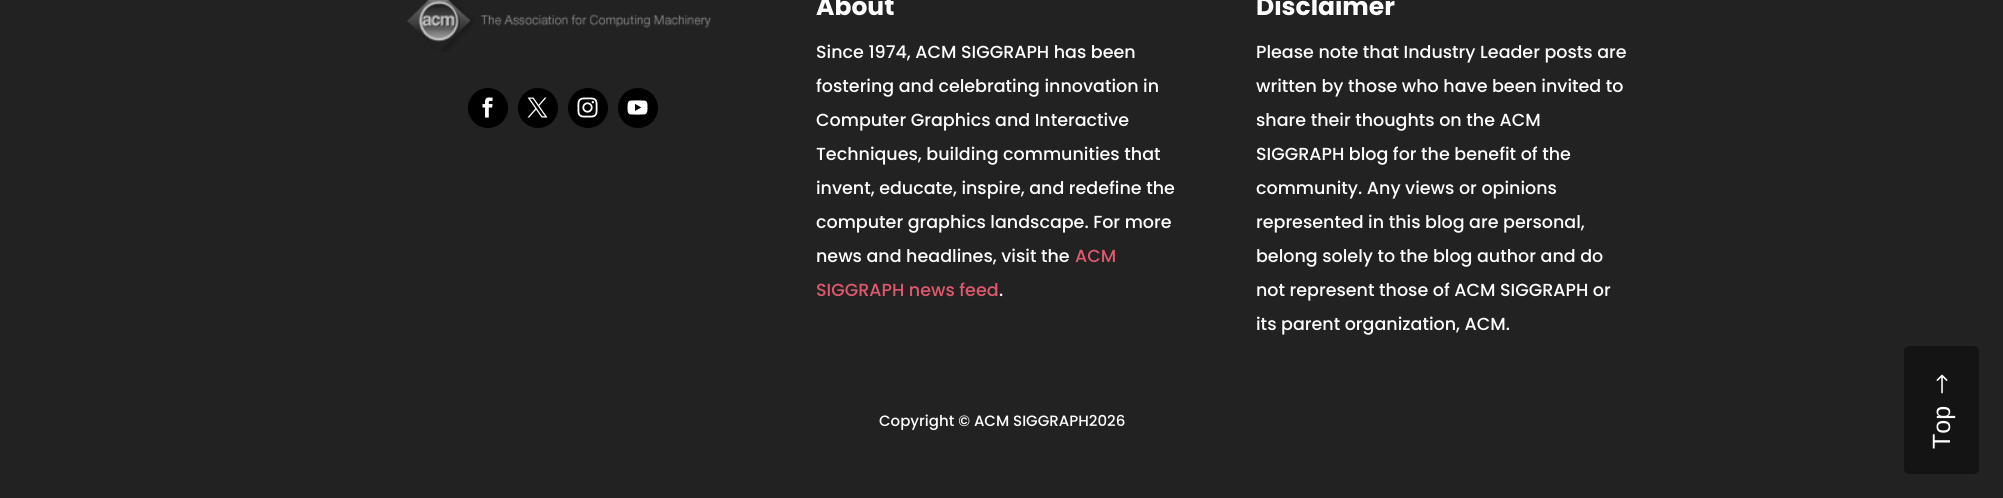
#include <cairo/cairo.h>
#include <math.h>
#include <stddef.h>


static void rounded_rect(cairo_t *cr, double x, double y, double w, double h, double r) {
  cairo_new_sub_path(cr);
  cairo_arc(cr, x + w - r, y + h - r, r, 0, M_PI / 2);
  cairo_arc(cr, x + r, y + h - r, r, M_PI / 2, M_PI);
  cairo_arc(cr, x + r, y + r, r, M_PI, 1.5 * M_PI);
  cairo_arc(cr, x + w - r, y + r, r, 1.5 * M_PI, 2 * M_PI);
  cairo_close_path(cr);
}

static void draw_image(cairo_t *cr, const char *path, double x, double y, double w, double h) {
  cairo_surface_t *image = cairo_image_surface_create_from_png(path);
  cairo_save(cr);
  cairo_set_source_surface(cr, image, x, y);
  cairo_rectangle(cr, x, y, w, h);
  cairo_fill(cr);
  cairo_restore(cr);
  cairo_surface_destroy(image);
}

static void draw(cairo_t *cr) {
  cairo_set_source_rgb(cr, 34 / 255.0, 34 / 255.0, 34 / 255.0);
  cairo_paint(cr);
  draw_image(cr, "images/1.png", 407, 0, 305, 52);
  cairo_set_source_rgb(cr, 0, 0, 0);
  cairo_arc(cr, 488, 108, 20, 0, 2 * M_PI);
  cairo_fill(cr);
  draw_image(cr, "images/2.png", 482, 97, 11, 21);
  cairo_arc(cr, 538, 108, 20, 0, 2 * M_PI);
  cairo_fill(cr);
  draw_image(cr, "images/3.png", 527, 97, 21, 21);
  cairo_arc(cr, 588, 108, 20, 0, 2 * M_PI);
  cairo_fill(cr);
  draw_image(cr, "images/4.png", 577, 97, 21, 21);
  cairo_arc(cr, 638, 108, 20, 0, 2 * M_PI);
  cairo_fill(cr);
  draw_image(cr, "images/5.png", 627, 100, 21, 15);
  cairo_set_source_rgb(cr, 20 / 255.0, 20 / 255.0, 20 / 255.0);
  rounded_rect(cr, 1904, 346, 75, 128, 5);
  cairo_fill(cr);
  draw_image(cr, "images/6.png", 1936, 374, 12, 20);
  cairo_select_font_face(cr, "Poppins", CAIRO_FONT_SLANT_NORMAL, CAIRO_FONT_WEIGHT_BOLD);
  cairo_set_font_size(cr, 25);
  cairo_set_source_rgb(cr, 1, 1, 1);
  cairo_move_to(cr, 816, 15);
  cairo_show_text(cr, "About");
  cairo_select_font_face(cr, "Poppins Medium", CAIRO_FONT_SLANT_NORMAL, CAIRO_FONT_WEIGHT_NORMAL);
  cairo_set_font_size(cr, 17.5);
  cairo_move_to(cr, 816, 58);
  cairo_show_text(cr, "Since 1974, ACM SIGGRAPH has been");
  cairo_move_to(cr, 816, 92);
  cairo_show_text(cr, "fostering and celebrating innovation in");
  cairo_move_to(cr, 816, 126);
  cairo_show_text(cr, "Computer Graphics and Interactive");
  cairo_move_to(cr, 816, 160);
  cairo_show_text(cr, "Techniques, building communities that");
  cairo_move_to(cr, 816, 194);
  cairo_show_text(cr, "invent, educate, inspire, and redefine the");
  cairo_move_to(cr, 816, 228);
  cairo_show_text(cr, "computer graphics landscape. For more");
  cairo_move_to(cr, 816, 262);
  cairo_show_text(cr, "news and headlines, visit the");
  cairo_set_source_rgb(cr, 223 / 255.0, 88 / 255.0, 109 / 255.0);
  cairo_move_to(cr, 1075, 262);
  cairo_show_text(cr, "ACM");
  cairo_move_to(cr, 816, 296);
  cairo_show_text(cr, "SIGGRAPH news feed");
  cairo_set_source_rgb(cr, 1, 1, 1);
  cairo_move_to(cr, 999, 296);
  cairo_show_text(cr, ".");
  cairo_select_font_face(cr, "Poppins", CAIRO_FONT_SLANT_NORMAL, CAIRO_FONT_WEIGHT_BOLD);
  cairo_set_font_size(cr, 25);
  cairo_move_to(cr, 1256, 15);
  cairo_show_text(cr, "Disclaimer");
  cairo_select_font_face(cr, "Poppins Medium", CAIRO_FONT_SLANT_NORMAL, CAIRO_FONT_WEIGHT_NORMAL);
  cairo_set_font_size(cr, 17.5);
  cairo_move_to(cr, 1256, 58);
  cairo_show_text(cr, "Please note that Industry Leader posts are");
  cairo_move_to(cr, 1256, 92);
  cairo_show_text(cr, "written by those who have been invited to");
  cairo_move_to(cr, 1256, 126);
  cairo_show_text(cr, "share their thoughts on the ACM");
  cairo_move_to(cr, 1256, 160);
  cairo_show_text(cr, "SIGGRAPH blog for the benefit of the");
  cairo_move_to(cr, 1256, 194);
  cairo_show_text(cr, "community. Any views or opinions");
  cairo_move_to(cr, 1256, 228);
  cairo_show_text(cr, "represented in this blog are personal,");
  cairo_move_to(cr, 1256, 262);
  cairo_show_text(cr, "belong solely to the blog author and do");
  cairo_move_to(cr, 1256, 296);
  cairo_show_text(cr, "not represent those of ACM SIGGRAPH or");
  cairo_move_to(cr, 1256, 330);
  cairo_show_text(cr, "its parent organization, ACM.");
  cairo_set_font_size(cr, 15);
  cairo_move_to(cr, 879, 426);
  cairo_show_text(cr, "Copyright © ACM SIGGRAPH2026");
  cairo_select_font_face(cr, "Liberation Sans", CAIRO_FONT_SLANT_NORMAL, CAIRO_FONT_WEIGHT_NORMAL);
  cairo_set_font_size(cr, 25);
  cairo_save(cr);
  cairo_translate(cr, 1950, 449);
  cairo_rotate(cr, -90 * M_PI / 180);
  cairo_move_to(cr, 0, 0);
  cairo_show_text(cr, "Top");
  cairo_restore(cr);
}

int main(void) {
  cairo_surface_t *surface = cairo_image_surface_create(CAIRO_FORMAT_RGB24, 2003, 498);
  cairo_t *cr = cairo_create(surface);
  cairo_font_options_t *options = cairo_font_options_create();
  cairo_font_options_set_hint_metrics(options, CAIRO_HINT_METRICS_OFF);
  cairo_font_options_set_hint_style(options, CAIRO_HINT_STYLE_NONE);
  cairo_set_font_options(cr, options);
  cairo_set_miter_limit(cr, 4);
  draw(cr);
  cairo_surface_write_to_png(surface, "out.png");
  cairo_font_options_destroy(options);
  cairo_destroy(cr);
  cairo_surface_destroy(surface);
  return 0;
}
